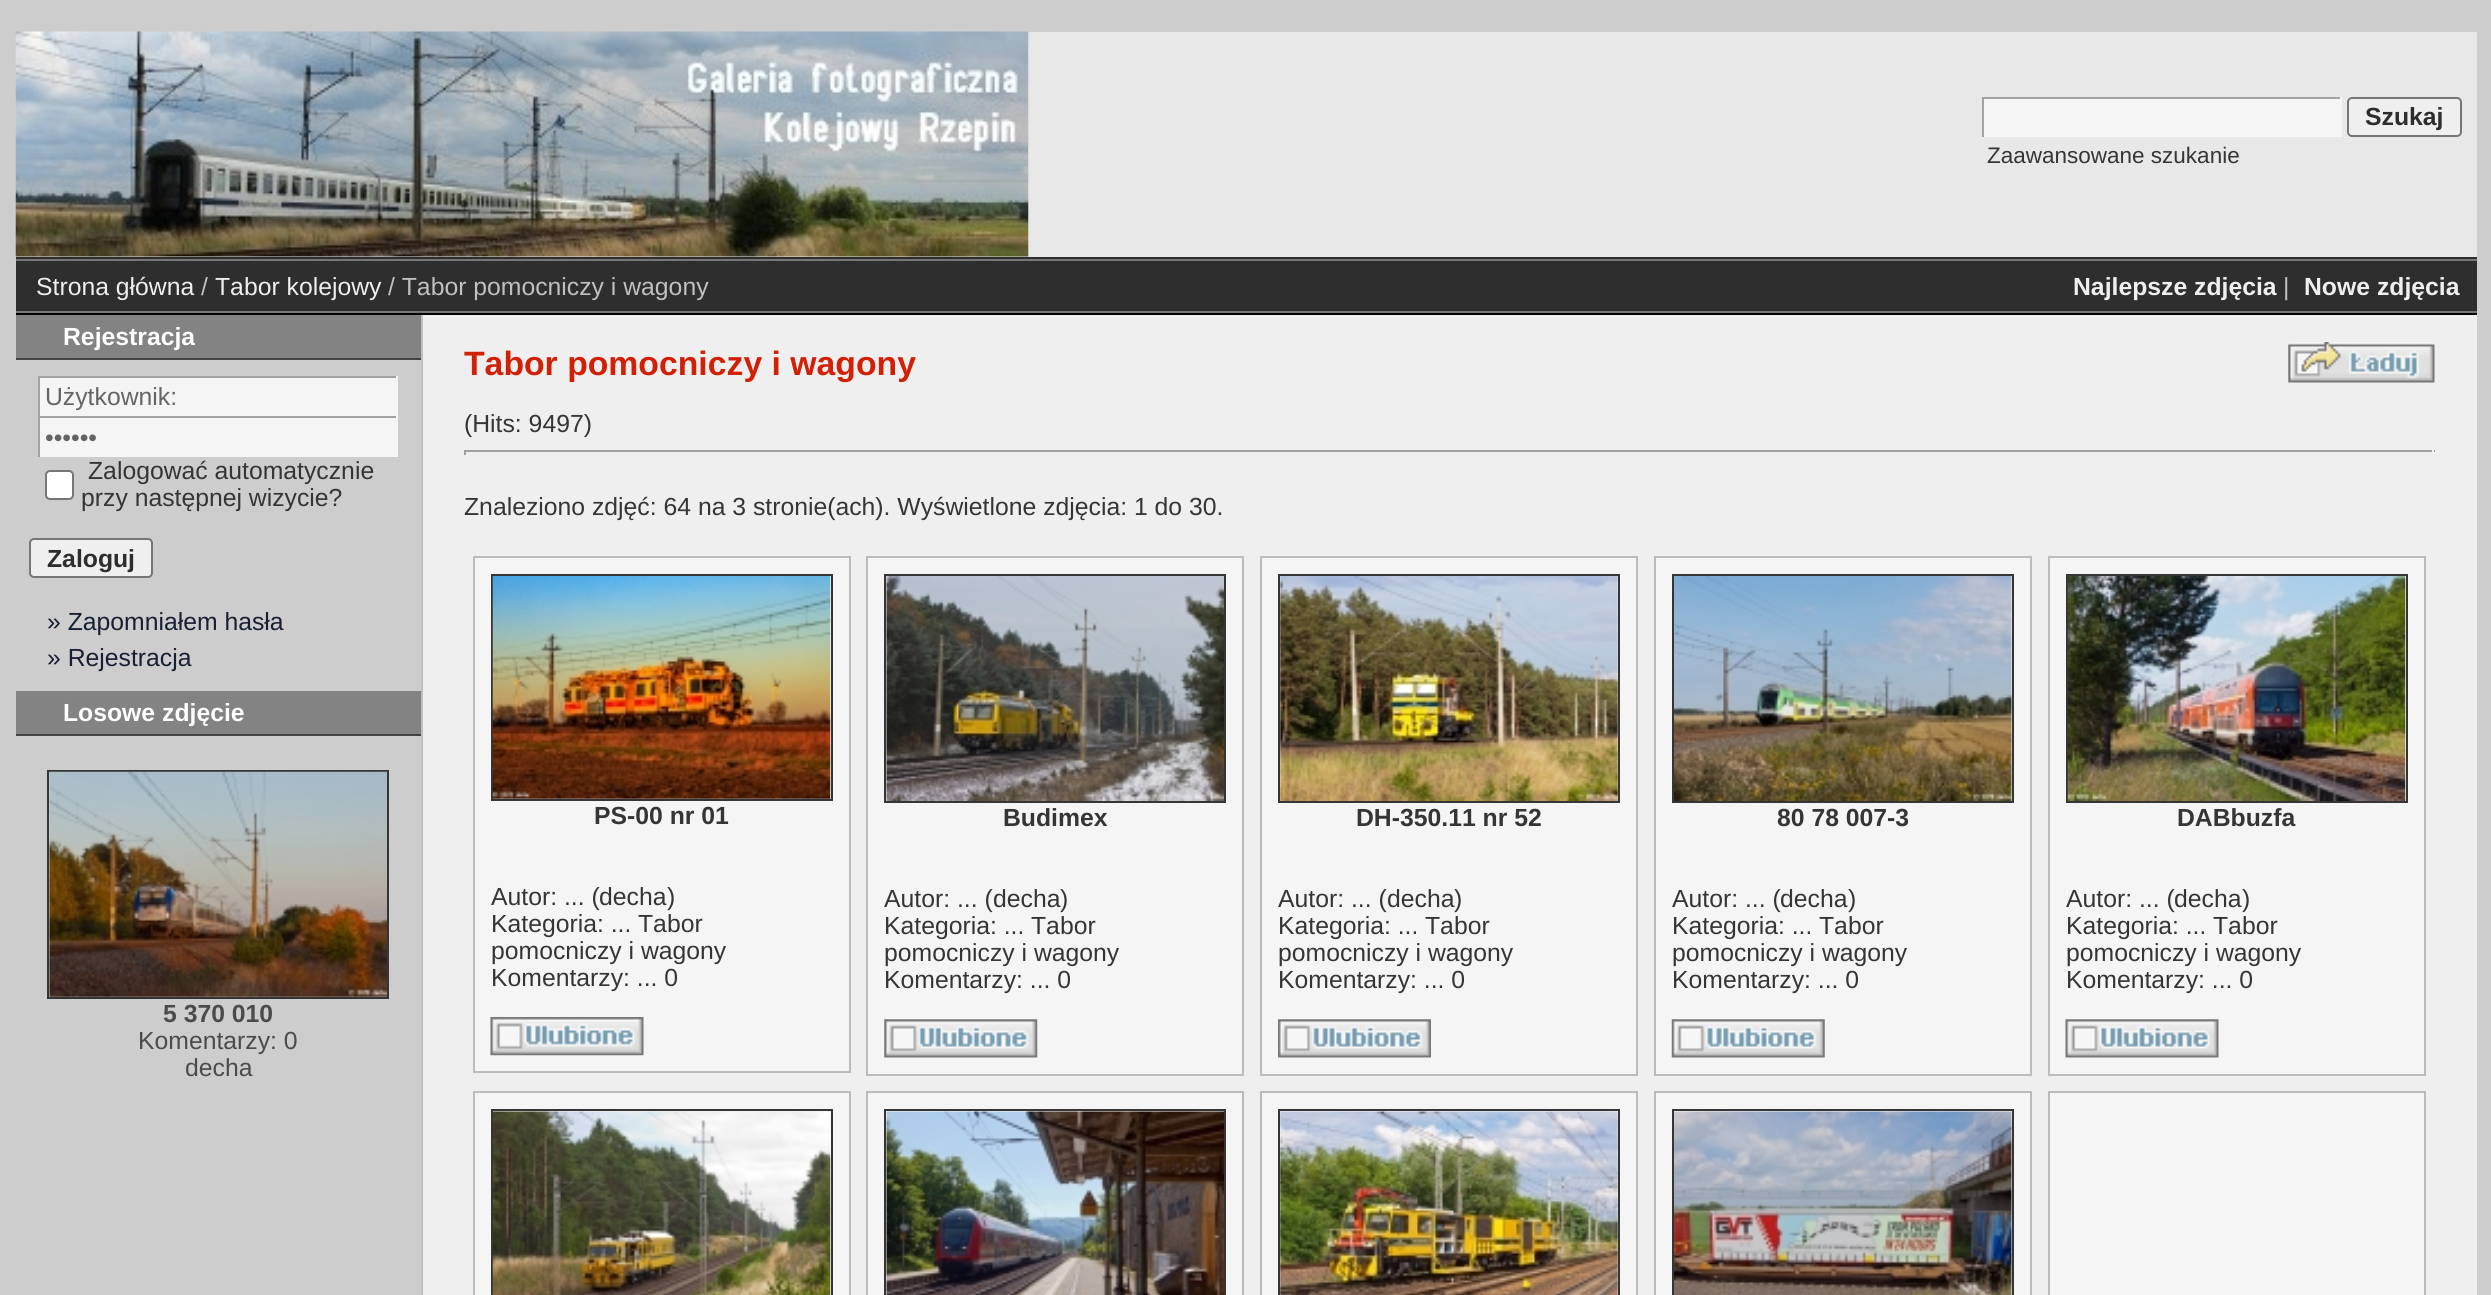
#include <cairo/cairo.h>
#include <math.h>
#include <stddef.h>


static void rounded_rect(cairo_t *cr, double x, double y, double w, double h, double r) {
  cairo_new_sub_path(cr);
  cairo_arc(cr, x + w - r, y + h - r, r, 0, M_PI / 2);
  cairo_arc(cr, x + r, y + h - r, r, M_PI / 2, M_PI);
  cairo_arc(cr, x + r, y + r, r, M_PI, 1.5 * M_PI);
  cairo_arc(cr, x + w - r, y + r, r, 1.5 * M_PI, 2 * M_PI);
  cairo_close_path(cr);
}

static void draw_image(cairo_t *cr, const char *path, double x, double y, double w, double h) {
  cairo_surface_t *image = cairo_image_surface_create_from_png(path);
  cairo_save(cr);
  cairo_set_source_surface(cr, image, x, y);
  cairo_rectangle(cr, x, y, w, h);
  cairo_fill(cr);
  cairo_restore(cr);
  cairo_surface_destroy(image);
}

static void draw(cairo_t *cr) {
  cairo_set_source_rgb(cr, 205 / 255.0, 205 / 255.0, 205 / 255.0);
  cairo_paint(cr);
  cairo_set_source_rgb(cr, 232 / 255.0, 232 / 255.0, 232 / 255.0);
  cairo_rectangle(cr, 16, 32, 2461, 225);
  cairo_fill(cr);
  cairo_set_source_rgb(cr, 45 / 255.0, 45 / 255.0, 45 / 255.0);
  cairo_rectangle(cr, 16, 257, 2461, 2);
  cairo_fill(cr);
  draw_image(cr, "images/1.png", 15, 31, 1014, 226);
  cairo_set_source_rgb(cr, 245 / 255.0, 245 / 255.0, 245 / 255.0);
  cairo_rectangle(cr, 1984, 99, 356, 38);
  cairo_fill(cr);
  cairo_set_source_rgb(cr, 163 / 255.0, 163 / 255.0, 163 / 255.0);
  cairo_rectangle(cr, 1982, 97, 360, 2);
  cairo_fill(cr);
  cairo_set_source_rgb(cr, 245 / 255.0, 245 / 255.0, 245 / 255.0);
  cairo_rectangle(cr, 2340, 97, 2, 40);
  cairo_fill(cr);
  cairo_set_source_rgb(cr, 163 / 255.0, 163 / 255.0, 163 / 255.0);
  cairo_rectangle(cr, 1982, 97, 2, 40);
  cairo_fill(cr);
  cairo_set_source_rgb(cr, 239 / 255.0, 239 / 255.0, 239 / 255.0);
  rounded_rect(cr, 2348, 98, 113, 38, 4);
  cairo_fill_preserve(cr);
  cairo_set_source_rgb(cr, 118 / 255.0, 118 / 255.0, 118 / 255.0);
  cairo_stroke(cr);
  cairo_set_source_rgb(cr, 239 / 255.0, 239 / 255.0, 239 / 255.0);
  cairo_rectangle(cr, 423, 315, 2054, 980);
  cairo_fill(cr);
  cairo_set_source_rgb(cr, 46 / 255.0, 46 / 255.0, 46 / 255.0);
  cairo_rectangle(cr, 16, 261, 2461, 50);
  cairo_fill(cr);
  cairo_set_source_rgb(cr, 119 / 255.0, 119 / 255.0, 119 / 255.0);
  cairo_rectangle(cr, 16, 259, 2461, 2);
  cairo_fill(cr);
  cairo_rectangle(cr, 16, 311, 2461, 2);
  cairo_fill(cr);
  cairo_set_source_rgb(cr, 0, 0, 0);
  cairo_rectangle(cr, 16, 313, 2461, 2);
  cairo_fill(cr);
  cairo_set_source_rgb(cr, 131 / 255.0, 131 / 255.0, 131 / 255.0);
  cairo_rectangle(cr, 16, 315, 405, 43);
  cairo_fill(cr);
  cairo_set_source_rgb(cr, 67 / 255.0, 67 / 255.0, 67 / 255.0);
  cairo_rectangle(cr, 16, 358, 405, 2);
  cairo_fill(cr);
  cairo_set_source_rgb(cr, 245 / 255.0, 245 / 255.0, 245 / 255.0);
  cairo_rectangle(cr, 40, 378, 356, 38);
  cairo_fill(cr);
  cairo_set_source_rgb(cr, 163 / 255.0, 163 / 255.0, 163 / 255.0);
  cairo_rectangle(cr, 38, 376, 360, 2);
  cairo_fill(cr);
  cairo_set_source_rgb(cr, 245 / 255.0, 245 / 255.0, 245 / 255.0);
  cairo_rectangle(cr, 396, 376, 2, 40);
  cairo_fill(cr);
  cairo_set_source_rgb(cr, 163 / 255.0, 163 / 255.0, 163 / 255.0);
  cairo_rectangle(cr, 38, 376, 2, 40);
  cairo_fill(cr);
  cairo_set_source_rgb(cr, 245 / 255.0, 245 / 255.0, 245 / 255.0);
  cairo_rectangle(cr, 40, 418, 356, 39);
  cairo_fill(cr);
  cairo_set_source_rgb(cr, 163 / 255.0, 163 / 255.0, 163 / 255.0);
  cairo_rectangle(cr, 38, 416, 360, 2);
  cairo_fill(cr);
  cairo_set_source_rgb(cr, 245 / 255.0, 245 / 255.0, 245 / 255.0);
  cairo_rectangle(cr, 396, 416, 2, 41);
  cairo_fill(cr);
  cairo_set_source_rgb(cr, 163 / 255.0, 163 / 255.0, 163 / 255.0);
  cairo_rectangle(cr, 38, 416, 2, 41);
  cairo_fill(cr);
  cairo_set_source_rgb(cr, 1, 1, 1);
  rounded_rect(cr, 46, 471, 27, 28, 4);
  cairo_fill_preserve(cr);
  cairo_set_source_rgb(cr, 118 / 255.0, 118 / 255.0, 118 / 255.0);
  cairo_stroke(cr);
  cairo_set_source_rgb(cr, 239 / 255.0, 239 / 255.0, 239 / 255.0);
  rounded_rect(cr, 30, 539, 122, 38, 4);
  cairo_fill_preserve(cr);
  cairo_set_source_rgb(cr, 118 / 255.0, 118 / 255.0, 118 / 255.0);
  cairo_stroke(cr);
  cairo_set_source_rgb(cr, 131 / 255.0, 131 / 255.0, 131 / 255.0);
  cairo_rectangle(cr, 16, 691, 405, 43);
  cairo_fill(cr);
  cairo_set_source_rgb(cr, 67 / 255.0, 67 / 255.0, 67 / 255.0);
  cairo_rectangle(cr, 16, 734, 405, 2);
  cairo_fill(cr);
  cairo_rectangle(cr, 48, 771, 340, 227);
  cairo_set_source_rgb(cr, 53 / 255.0, 53 / 255.0, 53 / 255.0);
  cairo_stroke(cr);
  draw_image(cr, "images/2.png", 49, 771, 338, 226);
  cairo_set_source_rgb(cr, 192 / 255.0, 192 / 255.0, 192 / 255.0);
  cairo_rectangle(cr, 421, 315, 2, 980);
  cairo_fill(cr);
  draw_image(cr, "images/3.png", 2288, 342, 147, 41);
  cairo_set_source_rgb(cr, 159 / 255.0, 159 / 255.0, 159 / 255.0);
  cairo_rectangle(cr, 464, 450, 1971, 2);
  cairo_fill(cr);
  cairo_set_source_rgb(cr, 238 / 255.0, 238 / 255.0, 238 / 255.0);
  cairo_rectangle(cr, 2432, 450, 2, 5);
  cairo_fill(cr);
  cairo_set_source_rgb(cr, 159 / 255.0, 159 / 255.0, 159 / 255.0);
  cairo_rectangle(cr, 464, 450, 2, 5);
  cairo_fill(cr);
  cairo_set_source_rgb(cr, 245 / 255.0, 245 / 255.0, 245 / 255.0);
  cairo_rectangle(cr, 474, 557, 376, 515);
  cairo_fill_preserve(cr);
  cairo_set_source_rgb(cr, 187 / 255.0, 187 / 255.0, 187 / 255.0);
  cairo_stroke(cr);
  cairo_rectangle(cr, 492, 575, 340, 225);
  cairo_set_source_rgb(cr, 53 / 255.0, 53 / 255.0, 53 / 255.0);
  cairo_stroke(cr);
  draw_image(cr, "images/4.png", 492, 576, 339, 223);
  draw_image(cr, "images/5.png", 490, 1017, 154, 39);
  cairo_set_source_rgb(cr, 245 / 255.0, 245 / 255.0, 245 / 255.0);
  cairo_rectangle(cr, 867, 557, 376, 518);
  cairo_fill_preserve(cr);
  cairo_set_source_rgb(cr, 187 / 255.0, 187 / 255.0, 187 / 255.0);
  cairo_stroke(cr);
  cairo_rectangle(cr, 885, 575, 340, 227);
  cairo_set_source_rgb(cr, 53 / 255.0, 53 / 255.0, 53 / 255.0);
  cairo_stroke(cr);
  draw_image(cr, "images/6.png", 886, 576, 338, 225);
  draw_image(cr, "images/7.png", 884, 1019, 154, 39);
  cairo_set_source_rgb(cr, 245 / 255.0, 245 / 255.0, 245 / 255.0);
  cairo_rectangle(cr, 1261, 557, 376, 518);
  cairo_fill_preserve(cr);
  cairo_set_source_rgb(cr, 187 / 255.0, 187 / 255.0, 187 / 255.0);
  cairo_stroke(cr);
  cairo_rectangle(cr, 1279, 575, 340, 227);
  cairo_set_source_rgb(cr, 53 / 255.0, 53 / 255.0, 53 / 255.0);
  cairo_stroke(cr);
  draw_image(cr, "images/8.png", 1280, 576, 338, 225);
  draw_image(cr, "images/9.png", 1278, 1019, 153, 39);
  cairo_set_source_rgb(cr, 245 / 255.0, 245 / 255.0, 245 / 255.0);
  cairo_rectangle(cr, 1655, 557, 376, 518);
  cairo_fill_preserve(cr);
  cairo_set_source_rgb(cr, 187 / 255.0, 187 / 255.0, 187 / 255.0);
  cairo_stroke(cr);
  cairo_rectangle(cr, 1673, 575, 340, 227);
  cairo_set_source_rgb(cr, 53 / 255.0, 53 / 255.0, 53 / 255.0);
  cairo_stroke(cr);
  draw_image(cr, "images/10.png", 1674, 576, 338, 225);
  draw_image(cr, "images/11.png", 1671, 1019, 154, 39);
  cairo_set_source_rgb(cr, 245 / 255.0, 245 / 255.0, 245 / 255.0);
  cairo_rectangle(cr, 2049, 557, 376, 518);
  cairo_fill_preserve(cr);
  cairo_set_source_rgb(cr, 187 / 255.0, 187 / 255.0, 187 / 255.0);
  cairo_stroke(cr);
  cairo_rectangle(cr, 2067, 575, 340, 227);
  cairo_set_source_rgb(cr, 53 / 255.0, 53 / 255.0, 53 / 255.0);
  cairo_stroke(cr);
  draw_image(cr, "images/12.png", 2067, 576, 339, 225);
  draw_image(cr, "images/13.png", 2065, 1019, 154, 39);
  cairo_set_source_rgb(cr, 245 / 255.0, 245 / 255.0, 245 / 255.0);
  cairo_rectangle(cr, 474, 1092, 376, 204);
  cairo_fill_preserve(cr);
  cairo_set_source_rgb(cr, 187 / 255.0, 187 / 255.0, 187 / 255.0);
  cairo_stroke(cr);
  cairo_rectangle(cr, 492, 1110, 340, 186);
  cairo_set_source_rgb(cr, 53 / 255.0, 53 / 255.0, 53 / 255.0);
  cairo_stroke(cr);
  draw_image(cr, "images/14.png", 492, 1111, 339, 184);
  cairo_set_source_rgb(cr, 245 / 255.0, 245 / 255.0, 245 / 255.0);
  cairo_rectangle(cr, 867, 1092, 376, 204);
  cairo_fill_preserve(cr);
  cairo_set_source_rgb(cr, 187 / 255.0, 187 / 255.0, 187 / 255.0);
  cairo_stroke(cr);
  cairo_rectangle(cr, 885, 1110, 340, 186);
  cairo_set_source_rgb(cr, 53 / 255.0, 53 / 255.0, 53 / 255.0);
  cairo_stroke(cr);
  draw_image(cr, "images/15.png", 886, 1111, 338, 184);
  cairo_set_source_rgb(cr, 245 / 255.0, 245 / 255.0, 245 / 255.0);
  cairo_rectangle(cr, 1261, 1092, 376, 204);
  cairo_fill_preserve(cr);
  cairo_set_source_rgb(cr, 187 / 255.0, 187 / 255.0, 187 / 255.0);
  cairo_stroke(cr);
  cairo_rectangle(cr, 1279, 1110, 340, 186);
  cairo_set_source_rgb(cr, 53 / 255.0, 53 / 255.0, 53 / 255.0);
  cairo_stroke(cr);
  draw_image(cr, "images/16.png", 1280, 1111, 338, 184);
  cairo_set_source_rgb(cr, 245 / 255.0, 245 / 255.0, 245 / 255.0);
  cairo_rectangle(cr, 1655, 1092, 376, 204);
  cairo_fill_preserve(cr);
  cairo_set_source_rgb(cr, 187 / 255.0, 187 / 255.0, 187 / 255.0);
  cairo_stroke(cr);
  cairo_rectangle(cr, 1673, 1110, 340, 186);
  cairo_set_source_rgb(cr, 53 / 255.0, 53 / 255.0, 53 / 255.0);
  cairo_stroke(cr);
  draw_image(cr, "images/17.png", 1674, 1111, 338, 184);
  cairo_set_source_rgb(cr, 245 / 255.0, 245 / 255.0, 245 / 255.0);
  cairo_rectangle(cr, 2049, 1092, 376, 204);
  cairo_fill_preserve(cr);
  cairo_set_source_rgb(cr, 187 / 255.0, 187 / 255.0, 187 / 255.0);
  cairo_stroke(cr);
  cairo_select_font_face(cr, "Liberation Sans", CAIRO_FONT_SLANT_NORMAL, CAIRO_FONT_WEIGHT_BOLD);
  cairo_set_font_size(cr, 24.75);
  cairo_set_source_rgb(cr, 45 / 255.0, 45 / 255.0, 45 / 255.0);
  cairo_move_to(cr, 2365, 125);
  cairo_show_text(cr, "Szukaj");
  cairo_select_font_face(cr, "Liberation Sans", CAIRO_FONT_SLANT_NORMAL, CAIRO_FONT_WEIGHT_NORMAL);
  cairo_set_font_size(cr, 22.5);
  cairo_set_source_rgb(cr, 53 / 255.0, 53 / 255.0, 53 / 255.0);
  cairo_move_to(cr, 1987, 163);
  cairo_show_text(cr, "Zaawansowane szukanie");
  cairo_set_font_size(cr, 24.75);
  cairo_set_source_rgb(cr, 239 / 255.0, 239 / 255.0, 239 / 255.0);
  cairo_move_to(cr, 36, 295);
  cairo_show_text(cr, "Strona główna");
  cairo_set_source_rgb(cr, 192 / 255.0, 192 / 255.0, 192 / 255.0);
  cairo_move_to(cr, 201, 295);
  cairo_show_text(cr, "/");
  cairo_set_source_rgb(cr, 239 / 255.0, 239 / 255.0, 239 / 255.0);
  cairo_move_to(cr, 215, 295);
  cairo_show_text(cr, "Tabor kolejowy");
  cairo_set_source_rgb(cr, 192 / 255.0, 192 / 255.0, 192 / 255.0);
  cairo_move_to(cr, 388, 295);
  cairo_show_text(cr, "/ Tabor pomocniczy i wagony");
  cairo_select_font_face(cr, "Liberation Sans", CAIRO_FONT_SLANT_NORMAL, CAIRO_FONT_WEIGHT_BOLD);
  cairo_set_source_rgb(cr, 239 / 255.0, 239 / 255.0, 239 / 255.0);
  cairo_move_to(cr, 2073, 295);
  cairo_show_text(cr, "Najlepsze zdjęcia");
  cairo_select_font_face(cr, "Liberation Sans", CAIRO_FONT_SLANT_NORMAL, CAIRO_FONT_WEIGHT_NORMAL);
  cairo_set_source_rgb(cr, 192 / 255.0, 192 / 255.0, 192 / 255.0);
  cairo_move_to(cr, 2283, 295);
  cairo_show_text(cr, "|");
  cairo_select_font_face(cr, "Liberation Sans", CAIRO_FONT_SLANT_NORMAL, CAIRO_FONT_WEIGHT_BOLD);
  cairo_set_source_rgb(cr, 239 / 255.0, 239 / 255.0, 239 / 255.0);
  cairo_move_to(cr, 2304, 295);
  cairo_show_text(cr, "Nowe zdjęcia");
  cairo_set_source_rgb(cr, 1, 1, 1);
  cairo_move_to(cr, 63, 345);
  cairo_show_text(cr, "Rejestracja");
  cairo_select_font_face(cr, "Liberation Sans", CAIRO_FONT_SLANT_NORMAL, CAIRO_FONT_WEIGHT_NORMAL);
  cairo_set_source_rgb(cr, 100 / 255.0, 100 / 255.0, 100 / 255.0);
  cairo_move_to(cr, 45, 405);
  cairo_show_text(cr, "Użytkownik:");
  cairo_move_to(cr, 45, 446);
  cairo_show_text(cr, "••••••");
  cairo_set_source_rgb(cr, 53 / 255.0, 53 / 255.0, 53 / 255.0);
  cairo_move_to(cr, 88, 479);
  cairo_show_text(cr, "Zalogować automatycznie");
  cairo_move_to(cr, 81, 506);
  cairo_show_text(cr, "przy następnej wizycie?");
  cairo_select_font_face(cr, "Liberation Sans", CAIRO_FONT_SLANT_NORMAL, CAIRO_FONT_WEIGHT_BOLD);
  cairo_set_source_rgb(cr, 45 / 255.0, 45 / 255.0, 45 / 255.0);
  cairo_move_to(cr, 47, 567);
  cairo_show_text(cr, "Zaloguj");
  cairo_select_font_face(cr, "Liberation Sans", CAIRO_FONT_SLANT_NORMAL, CAIRO_FONT_WEIGHT_NORMAL);
  cairo_set_source_rgb(cr, 23 / 255.0, 32 / 255.0, 51 / 255.0);
  cairo_move_to(cr, 47, 630);
  cairo_show_text(cr, "» Zapomniałem hasła");
  cairo_move_to(cr, 47, 666);
  cairo_show_text(cr, "» Rejestracja");
  cairo_select_font_face(cr, "Liberation Sans", CAIRO_FONT_SLANT_NORMAL, CAIRO_FONT_WEIGHT_BOLD);
  cairo_set_source_rgb(cr, 1, 1, 1);
  cairo_move_to(cr, 63, 721);
  cairo_show_text(cr, "Losowe zdjęcie");
  cairo_set_source_rgb(cr, 75 / 255.0, 75 / 255.0, 75 / 255.0);
  cairo_move_to(cr, 163, 1022);
  cairo_show_text(cr, "5 370 010");
  cairo_select_font_face(cr, "Liberation Sans", CAIRO_FONT_SLANT_NORMAL, CAIRO_FONT_WEIGHT_NORMAL);
  cairo_move_to(cr, 138, 1049);
  cairo_show_text(cr, "Komentarzy: 0");
  cairo_move_to(cr, 185, 1076);
  cairo_show_text(cr, "decha");
  cairo_select_font_face(cr, "Liberation Sans", CAIRO_FONT_SLANT_NORMAL, CAIRO_FONT_WEIGHT_BOLD);
  cairo_set_font_size(cr, 33.75);
  cairo_set_source_rgb(cr, 210 / 255.0, 32 / 255.0, 6 / 255.0);
  cairo_move_to(cr, 464, 375);
  cairo_show_text(cr, "Tabor pomocniczy i wagony");
  cairo_select_font_face(cr, "Liberation Sans", CAIRO_FONT_SLANT_NORMAL, CAIRO_FONT_WEIGHT_NORMAL);
  cairo_set_font_size(cr, 24.75);
  cairo_set_source_rgb(cr, 53 / 255.0, 53 / 255.0, 53 / 255.0);
  cairo_move_to(cr, 464, 432);
  cairo_show_text(cr, "(Hits: 9497)");
  cairo_move_to(cr, 464, 515);
  cairo_show_text(cr, "Znaleziono zdjęć: 64 na 3 stronie(ach). Wyświetlone zdjęcia: 1 do 30.");
  cairo_select_font_face(cr, "Liberation Sans", CAIRO_FONT_SLANT_NORMAL, CAIRO_FONT_WEIGHT_BOLD);
  cairo_move_to(cr, 594, 824);
  cairo_show_text(cr, "PS-00 nr 01");
  cairo_select_font_face(cr, "Liberation Sans", CAIRO_FONT_SLANT_NORMAL, CAIRO_FONT_WEIGHT_NORMAL);
  cairo_move_to(cr, 491, 905);
  cairo_show_text(cr, "Autor: ... (");
  cairo_move_to(cr, 599, 905);
  cairo_show_text(cr, "decha");
  cairo_move_to(cr, 667, 905);
  cairo_show_text(cr, ")");
  cairo_move_to(cr, 491, 932);
  cairo_show_text(cr, "Kategoria: ...");
  cairo_move_to(cr, 638, 932);
  cairo_show_text(cr, "Tabor");
  cairo_move_to(cr, 491, 959);
  cairo_show_text(cr, "pomocniczy i wagony");
  cairo_move_to(cr, 491, 986);
  cairo_show_text(cr, "Komentarzy: ... 0");
  cairo_select_font_face(cr, "Liberation Sans", CAIRO_FONT_SLANT_NORMAL, CAIRO_FONT_WEIGHT_BOLD);
  cairo_move_to(cr, 1003, 826);
  cairo_show_text(cr, "Budimex");
  cairo_select_font_face(cr, "Liberation Sans", CAIRO_FONT_SLANT_NORMAL, CAIRO_FONT_WEIGHT_NORMAL);
  cairo_move_to(cr, 884, 907);
  cairo_show_text(cr, "Autor: ... (");
  cairo_move_to(cr, 993, 907);
  cairo_show_text(cr, "decha");
  cairo_move_to(cr, 1060, 907);
  cairo_show_text(cr, ")");
  cairo_move_to(cr, 884, 934);
  cairo_show_text(cr, "Kategoria: ...");
  cairo_move_to(cr, 1031, 934);
  cairo_show_text(cr, "Tabor");
  cairo_move_to(cr, 884, 961);
  cairo_show_text(cr, "pomocniczy i wagony");
  cairo_move_to(cr, 884, 988);
  cairo_show_text(cr, "Komentarzy: ... 0");
  cairo_select_font_face(cr, "Liberation Sans", CAIRO_FONT_SLANT_NORMAL, CAIRO_FONT_WEIGHT_BOLD);
  cairo_move_to(cr, 1356, 826);
  cairo_show_text(cr, "DH-350.11 nr 52");
  cairo_select_font_face(cr, "Liberation Sans", CAIRO_FONT_SLANT_NORMAL, CAIRO_FONT_WEIGHT_NORMAL);
  cairo_move_to(cr, 1278, 907);
  cairo_show_text(cr, "Autor: ... (");
  cairo_move_to(cr, 1387, 907);
  cairo_show_text(cr, "decha");
  cairo_move_to(cr, 1454, 907);
  cairo_show_text(cr, ")");
  cairo_move_to(cr, 1278, 934);
  cairo_show_text(cr, "Kategoria: ...");
  cairo_move_to(cr, 1425, 934);
  cairo_show_text(cr, "Tabor");
  cairo_move_to(cr, 1278, 961);
  cairo_show_text(cr, "pomocniczy i wagony");
  cairo_move_to(cr, 1278, 988);
  cairo_show_text(cr, "Komentarzy: ... 0");
  cairo_select_font_face(cr, "Liberation Sans", CAIRO_FONT_SLANT_NORMAL, CAIRO_FONT_WEIGHT_BOLD);
  cairo_move_to(cr, 1777, 826);
  cairo_show_text(cr, "80 78 007-3");
  cairo_select_font_face(cr, "Liberation Sans", CAIRO_FONT_SLANT_NORMAL, CAIRO_FONT_WEIGHT_NORMAL);
  cairo_move_to(cr, 1672, 907);
  cairo_show_text(cr, "Autor: ... (");
  cairo_move_to(cr, 1780, 907);
  cairo_show_text(cr, "decha");
  cairo_move_to(cr, 1848, 907);
  cairo_show_text(cr, ")");
  cairo_move_to(cr, 1672, 934);
  cairo_show_text(cr, "Kategoria: ...");
  cairo_move_to(cr, 1819, 934);
  cairo_show_text(cr, "Tabor");
  cairo_move_to(cr, 1672, 961);
  cairo_show_text(cr, "pomocniczy i wagony");
  cairo_move_to(cr, 1672, 988);
  cairo_show_text(cr, "Komentarzy: ... 0");
  cairo_select_font_face(cr, "Liberation Sans", CAIRO_FONT_SLANT_NORMAL, CAIRO_FONT_WEIGHT_BOLD);
  cairo_move_to(cr, 2177, 826);
  cairo_show_text(cr, "DABbuzfa");
  cairo_select_font_face(cr, "Liberation Sans", CAIRO_FONT_SLANT_NORMAL, CAIRO_FONT_WEIGHT_NORMAL);
  cairo_move_to(cr, 2066, 907);
  cairo_show_text(cr, "Autor: ... (");
  cairo_move_to(cr, 2174, 907);
  cairo_show_text(cr, "decha");
  cairo_move_to(cr, 2242, 907);
  cairo_show_text(cr, ")");
  cairo_move_to(cr, 2066, 934);
  cairo_show_text(cr, "Kategoria: ...");
  cairo_move_to(cr, 2213, 934);
  cairo_show_text(cr, "Tabor");
  cairo_move_to(cr, 2066, 961);
  cairo_show_text(cr, "pomocniczy i wagony");
  cairo_move_to(cr, 2066, 988);
  cairo_show_text(cr, "Komentarzy: ... 0");
}

int main(void) {
  cairo_surface_t *surface = cairo_image_surface_create(CAIRO_FORMAT_RGB24, 2491, 1295);
  cairo_t *cr = cairo_create(surface);
  cairo_font_options_t *options = cairo_font_options_create();
  cairo_font_options_set_hint_metrics(options, CAIRO_HINT_METRICS_OFF);
  cairo_font_options_set_hint_style(options, CAIRO_HINT_STYLE_NONE);
  cairo_set_font_options(cr, options);
  cairo_set_miter_limit(cr, 4);
  draw(cr);
  cairo_surface_write_to_png(surface, "out.png");
  cairo_font_options_destroy(options);
  cairo_destroy(cr);
  cairo_surface_destroy(surface);
  return 0;
}
